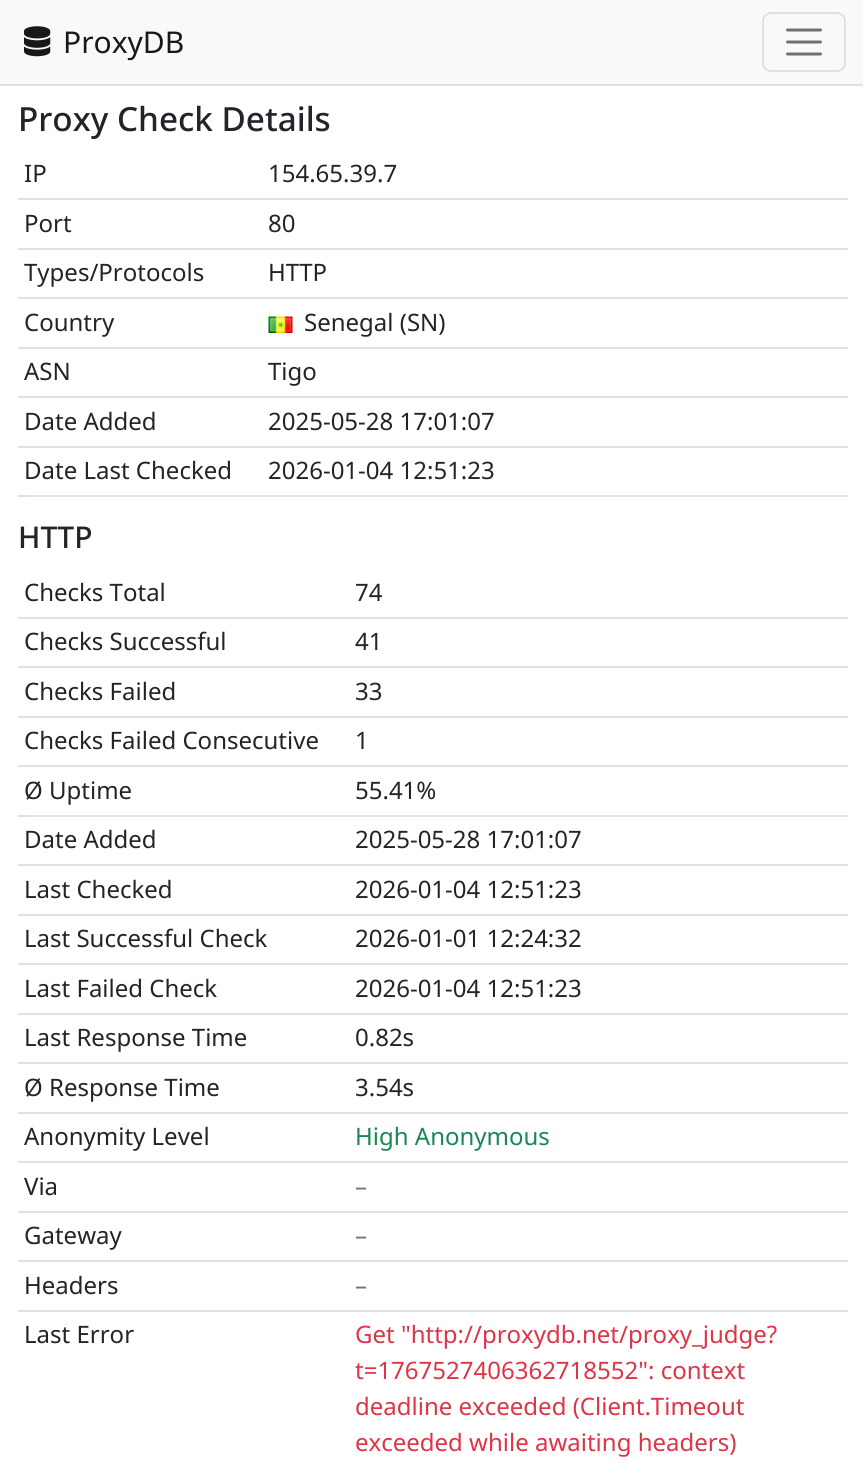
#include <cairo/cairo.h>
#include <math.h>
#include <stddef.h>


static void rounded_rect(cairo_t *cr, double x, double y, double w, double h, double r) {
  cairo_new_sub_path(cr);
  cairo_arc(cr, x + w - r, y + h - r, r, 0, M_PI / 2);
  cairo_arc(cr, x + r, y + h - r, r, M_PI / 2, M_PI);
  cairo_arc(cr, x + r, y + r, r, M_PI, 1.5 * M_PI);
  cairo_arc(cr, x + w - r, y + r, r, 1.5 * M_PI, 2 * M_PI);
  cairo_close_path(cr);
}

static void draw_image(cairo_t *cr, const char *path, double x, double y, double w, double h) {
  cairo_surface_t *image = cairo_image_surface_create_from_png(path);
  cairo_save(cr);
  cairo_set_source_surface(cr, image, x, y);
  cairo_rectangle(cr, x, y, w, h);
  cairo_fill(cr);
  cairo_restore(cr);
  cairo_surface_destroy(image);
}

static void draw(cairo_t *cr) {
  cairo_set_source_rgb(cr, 1, 1, 1);
  cairo_paint(cr);
  cairo_set_source_rgb(cr, 248 / 255.0, 249 / 255.0, 250 / 255.0);
  cairo_rectangle(cr, 0, 0, 863, 84);
  cairo_fill(cr);
  cairo_set_source_rgb(cr, 222 / 255.0, 226 / 255.0, 230 / 255.0);
  cairo_rectangle(cr, 0, 84, 863, 2);
  cairo_fill(cr);
  draw_image(cr, "images/1.png", 24, 26, 27, 31);
  rounded_rect(cr, 763, 13, 82, 58, 8);
  cairo_set_source_rgb(cr, 223 / 255.0, 224 / 255.0, 225 / 255.0);
  cairo_stroke(cr);
  cairo_new_path(cr);
  cairo_move_to(cr, 787.5, 30);
  cairo_line_to(cr, 820.5, 30);
  cairo_move_to(cr, 787.5, 42);
  cairo_line_to(cr, 820.5, 42);
  cairo_move_to(cr, 787.5, 54);
  cairo_line_to(cr, 820.5, 54);
  cairo_set_source_rgb(cr, 112 / 255.0, 112 / 255.0, 113 / 255.0);
  cairo_set_line_width(cr, 3);
  cairo_set_line_cap(cr, CAIRO_LINE_CAP_ROUND);
  cairo_stroke(cr);
  cairo_set_source_rgb(cr, 222 / 255.0, 226 / 255.0, 230 / 255.0);
  cairo_rectangle(cr, 18, 198, 830, 2);
  cairo_fill(cr);
  cairo_rectangle(cr, 18, 248, 830, 2);
  cairo_fill(cr);
  cairo_rectangle(cr, 18, 297, 830, 2);
  cairo_fill(cr);
  cairo_rectangle(cr, 18, 347, 830, 2);
  cairo_fill(cr);
  draw_image(cr, "images/2.png", 268, 316, 25, 17);
  cairo_rectangle(cr, 18, 396, 830, 2);
  cairo_fill(cr);
  cairo_rectangle(cr, 18, 446, 830, 2);
  cairo_fill(cr);
  cairo_rectangle(cr, 18, 495, 830, 2);
  cairo_fill(cr);
  cairo_rectangle(cr, 18, 617, 830, 2);
  cairo_fill(cr);
  cairo_rectangle(cr, 18, 666, 830, 2);
  cairo_fill(cr);
  cairo_rectangle(cr, 18, 716, 830, 2);
  cairo_fill(cr);
  cairo_rectangle(cr, 18, 765, 830, 2);
  cairo_fill(cr);
  cairo_rectangle(cr, 18, 815, 830, 2);
  cairo_fill(cr);
  cairo_rectangle(cr, 18, 864, 830, 2);
  cairo_fill(cr);
  cairo_rectangle(cr, 18, 914, 830, 2);
  cairo_fill(cr);
  cairo_rectangle(cr, 18, 963, 830, 2);
  cairo_fill(cr);
  cairo_rectangle(cr, 18, 1013, 830, 2);
  cairo_fill(cr);
  cairo_rectangle(cr, 18, 1062, 830, 2);
  cairo_fill(cr);
  cairo_rectangle(cr, 18, 1112, 830, 2);
  cairo_fill(cr);
  cairo_rectangle(cr, 18, 1161, 830, 2);
  cairo_fill(cr);
  cairo_rectangle(cr, 18, 1211, 830, 2);
  cairo_fill(cr);
  cairo_rectangle(cr, 18, 1260, 830, 2);
  cairo_fill(cr);
  cairo_rectangle(cr, 18, 1310, 830, 2);
  cairo_fill(cr);
  cairo_select_font_face(cr, "Noto Sans", CAIRO_FONT_SLANT_NORMAL, CAIRO_FONT_WEIGHT_NORMAL);
  cairo_set_font_size(cr, 30);
  cairo_set_source_rgb(cr, 25 / 255.0, 25 / 255.0, 25 / 255.0);
  cairo_move_to(cr, 63, 53);
  cairo_show_text(cr, "ProxyDB");
  cairo_select_font_face(cr, "Noto Sans Medium", CAIRO_FONT_SLANT_NORMAL, CAIRO_FONT_WEIGHT_NORMAL);
  cairo_set_font_size(cr, 33.25);
  cairo_set_source_rgb(cr, 33 / 255.0, 37 / 255.0, 41 / 255.0);
  cairo_move_to(cr, 18, 131);
  cairo_show_text(cr, "Proxy Check Details");
  cairo_select_font_face(cr, "Noto Sans", CAIRO_FONT_SLANT_NORMAL, CAIRO_FONT_WEIGHT_NORMAL);
  cairo_set_font_size(cr, 24);
  cairo_move_to(cr, 24, 182);
  cairo_show_text(cr, "IP");
  cairo_move_to(cr, 268, 182);
  cairo_show_text(cr, "154.65.39.7");
  cairo_move_to(cr, 24, 232);
  cairo_show_text(cr, "Port");
  cairo_move_to(cr, 268, 232);
  cairo_show_text(cr, "80");
  cairo_move_to(cr, 24, 281);
  cairo_show_text(cr, "Types/Protocols");
  cairo_move_to(cr, 268, 281);
  cairo_show_text(cr, "HTTP");
  cairo_move_to(cr, 24, 331);
  cairo_show_text(cr, "Country");
  cairo_move_to(cr, 304, 331);
  cairo_show_text(cr, "Senegal (SN)");
  cairo_move_to(cr, 24, 380);
  cairo_show_text(cr, "ASN");
  cairo_move_to(cr, 268, 380);
  cairo_show_text(cr, "Tigo");
  cairo_move_to(cr, 24, 430);
  cairo_show_text(cr, "Date Added");
  cairo_move_to(cr, 268, 430);
  cairo_show_text(cr, "2025-05-28 17:01:07");
  cairo_move_to(cr, 24, 479);
  cairo_show_text(cr, "Date Last Checked");
  cairo_move_to(cr, 268, 479);
  cairo_show_text(cr, "2026-01-04 12:51:23");
  cairo_select_font_face(cr, "Noto Sans Medium", CAIRO_FONT_SLANT_NORMAL, CAIRO_FONT_WEIGHT_NORMAL);
  cairo_set_font_size(cr, 30);
  cairo_move_to(cr, 18, 548);
  cairo_show_text(cr, "HTTP");
  cairo_select_font_face(cr, "Noto Sans", CAIRO_FONT_SLANT_NORMAL, CAIRO_FONT_WEIGHT_NORMAL);
  cairo_set_font_size(cr, 24);
  cairo_move_to(cr, 24, 601);
  cairo_show_text(cr, "Checks Total");
  cairo_move_to(cr, 355, 601);
  cairo_show_text(cr, "74");
  cairo_move_to(cr, 24, 650);
  cairo_show_text(cr, "Checks Successful");
  cairo_move_to(cr, 355, 650);
  cairo_show_text(cr, "41");
  cairo_move_to(cr, 24, 700);
  cairo_show_text(cr, "Checks Failed");
  cairo_move_to(cr, 355, 700);
  cairo_show_text(cr, "33");
  cairo_move_to(cr, 24, 749);
  cairo_show_text(cr, "Checks Failed Consecutive");
  cairo_move_to(cr, 355, 749);
  cairo_show_text(cr, "1");
  cairo_move_to(cr, 24, 799);
  cairo_show_text(cr, "Ø Uptime");
  cairo_move_to(cr, 355, 799);
  cairo_show_text(cr, "55.41%");
  cairo_move_to(cr, 24, 848);
  cairo_show_text(cr, "Date Added");
  cairo_move_to(cr, 355, 848);
  cairo_show_text(cr, "2025-05-28 17:01:07");
  cairo_move_to(cr, 24, 898);
  cairo_show_text(cr, "Last Checked");
  cairo_move_to(cr, 355, 898);
  cairo_show_text(cr, "2026-01-04 12:51:23");
  cairo_move_to(cr, 24, 947);
  cairo_show_text(cr, "Last Successful Check");
  cairo_move_to(cr, 355, 947);
  cairo_show_text(cr, "2026-01-01 12:24:32");
  cairo_move_to(cr, 24, 997);
  cairo_show_text(cr, "Last Failed Check");
  cairo_move_to(cr, 355, 997);
  cairo_show_text(cr, "2026-01-04 12:51:23");
  cairo_move_to(cr, 24, 1046);
  cairo_show_text(cr, "Last Response Time");
  cairo_move_to(cr, 355, 1046);
  cairo_show_text(cr, "0.82s");
  cairo_move_to(cr, 24, 1096);
  cairo_show_text(cr, "Ø Response Time");
  cairo_move_to(cr, 355, 1096);
  cairo_show_text(cr, "3.54s");
  cairo_move_to(cr, 24, 1145);
  cairo_show_text(cr, "Anonymity Level");
  cairo_set_source_rgb(cr, 25 / 255.0, 135 / 255.0, 84 / 255.0);
  cairo_move_to(cr, 355, 1145);
  cairo_show_text(cr, "High Anonymous");
  cairo_set_source_rgb(cr, 33 / 255.0, 37 / 255.0, 41 / 255.0);
  cairo_move_to(cr, 24, 1195);
  cairo_show_text(cr, "Via");
  cairo_set_source_rgb(cr, 108 / 255.0, 117 / 255.0, 125 / 255.0);
  cairo_move_to(cr, 355, 1195);
  cairo_show_text(cr, "–");
  cairo_set_source_rgb(cr, 33 / 255.0, 37 / 255.0, 41 / 255.0);
  cairo_move_to(cr, 24, 1244);
  cairo_show_text(cr, "Gateway");
  cairo_set_source_rgb(cr, 108 / 255.0, 117 / 255.0, 125 / 255.0);
  cairo_move_to(cr, 355, 1244);
  cairo_show_text(cr, "–");
  cairo_set_source_rgb(cr, 33 / 255.0, 37 / 255.0, 41 / 255.0);
  cairo_move_to(cr, 24, 1294);
  cairo_show_text(cr, "Headers");
  cairo_set_source_rgb(cr, 108 / 255.0, 117 / 255.0, 125 / 255.0);
  cairo_move_to(cr, 355, 1294);
  cairo_show_text(cr, "–");
  cairo_set_source_rgb(cr, 33 / 255.0, 37 / 255.0, 41 / 255.0);
  cairo_move_to(cr, 24, 1343);
  cairo_show_text(cr, "Last Error");
  cairo_set_source_rgb(cr, 220 / 255.0, 53 / 255.0, 69 / 255.0);
  cairo_move_to(cr, 355, 1343);
  cairo_show_text(cr, "Get \"http://proxydb.net/proxy_judge?");
  cairo_move_to(cr, 355, 1379);
  cairo_show_text(cr, "t=1767527406362718552\": context");
  cairo_move_to(cr, 355, 1415);
  cairo_show_text(cr, "deadline exceeded (Client.Timeout");
  cairo_move_to(cr, 355, 1451);
  cairo_show_text(cr, "exceeded while awaiting headers)");
}

int main(void) {
  cairo_surface_t *surface = cairo_image_surface_create(CAIRO_FORMAT_RGB24, 863, 1463);
  cairo_t *cr = cairo_create(surface);
  cairo_font_options_t *options = cairo_font_options_create();
  cairo_font_options_set_hint_metrics(options, CAIRO_HINT_METRICS_OFF);
  cairo_font_options_set_hint_style(options, CAIRO_HINT_STYLE_NONE);
  cairo_set_font_options(cr, options);
  cairo_set_miter_limit(cr, 4);
  draw(cr);
  cairo_surface_write_to_png(surface, "out.png");
  cairo_font_options_destroy(options);
  cairo_destroy(cr);
  cairo_surface_destroy(surface);
  return 0;
}
